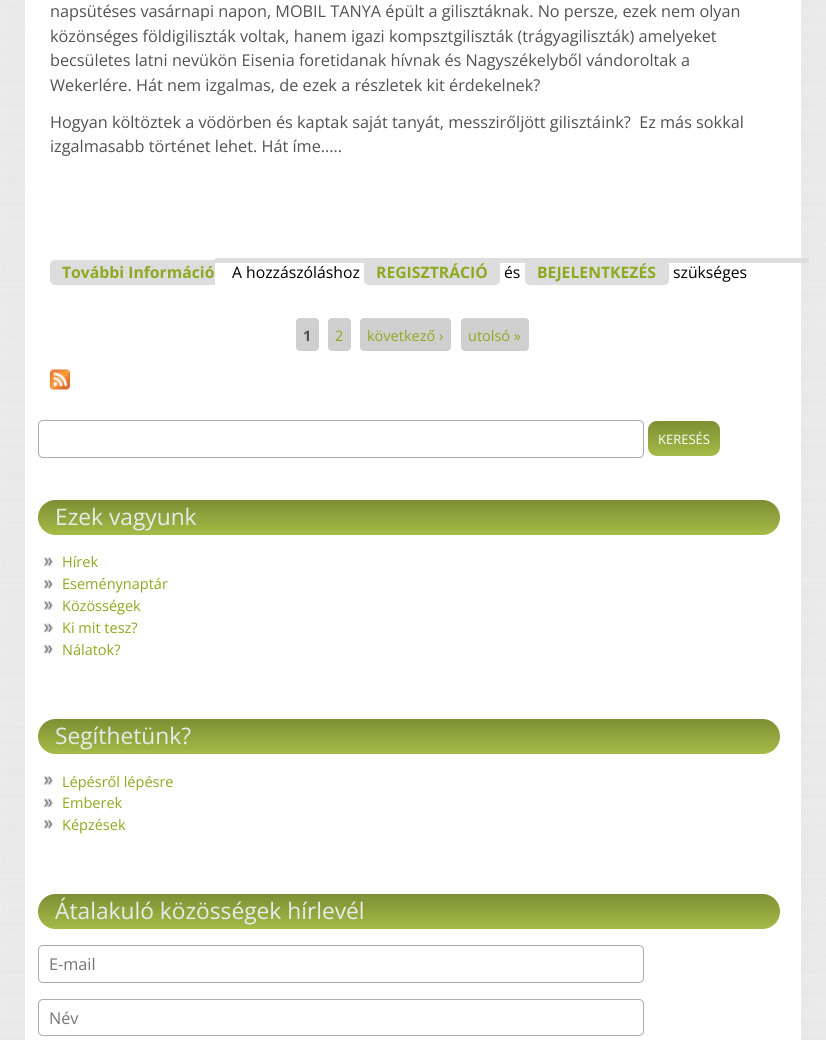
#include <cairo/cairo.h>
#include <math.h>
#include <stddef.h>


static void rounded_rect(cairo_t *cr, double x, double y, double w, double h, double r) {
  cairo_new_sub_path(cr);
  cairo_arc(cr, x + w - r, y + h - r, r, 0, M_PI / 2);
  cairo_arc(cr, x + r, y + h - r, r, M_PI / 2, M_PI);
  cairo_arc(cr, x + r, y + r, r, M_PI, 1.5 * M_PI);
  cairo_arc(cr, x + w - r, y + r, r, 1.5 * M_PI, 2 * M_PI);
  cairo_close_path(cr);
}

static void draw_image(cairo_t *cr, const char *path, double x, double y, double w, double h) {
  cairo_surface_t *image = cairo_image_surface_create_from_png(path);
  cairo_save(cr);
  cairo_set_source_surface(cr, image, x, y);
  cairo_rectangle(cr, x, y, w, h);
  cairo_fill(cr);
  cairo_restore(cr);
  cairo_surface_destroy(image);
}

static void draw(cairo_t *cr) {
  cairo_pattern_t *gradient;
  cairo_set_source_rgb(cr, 1, 1, 1);
  cairo_paint(cr);
  draw_image(cr, "images/1.png", 0, 0, 826, 1040);
  cairo_set_source_rgb(cr, 1, 1, 1);
  cairo_rectangle(cr, 25, 0, 776, 1040);
  cairo_fill(cr);
  cairo_set_source_rgb(cr, 221 / 255.0, 221 / 255.0, 221 / 255.0);
  cairo_new_path(cr);
  cairo_move_to(cr, 55, 260);
  cairo_line_to(cr, 215, 260);
  cairo_line_to(cr, 215, 285);
  cairo_line_to(cr, 55, 285);
  cairo_curve_to(cr, 52, 285, 50, 283, 50, 280);
  cairo_line_to(cr, 50, 265);
  cairo_curve_to(cr, 50, 262, 52, 260, 55, 260);
  cairo_close_path(cr);
  cairo_fill(cr);
  cairo_new_path(cr);
  cairo_move_to(cr, 215, 258);
  cairo_line_to(cr, 806.5, 258);
  cairo_curve_to(cr, 808, 258, 809, 259, 809, 260.5);
  cairo_curve_to(cr, 809, 262, 808, 263, 806.5, 263);
  cairo_line_to(cr, 215, 263);
  cairo_close_path(cr);
  cairo_fill(cr);
  rounded_rect(cr, 364, 260, 136, 25, 5);
  cairo_fill(cr);
  rounded_rect(cr, 525, 260, 144, 25, 5);
  cairo_fill(cr);
  cairo_set_source_rgb(cr, 207 / 255.0, 207 / 255.0, 207 / 255.0);
  rounded_rect(cr, 296, 318, 23, 33, 4);
  cairo_fill(cr);
  rounded_rect(cr, 328, 318, 23, 33, 4);
  cairo_fill(cr);
  rounded_rect(cr, 360, 318, 91, 33, 4);
  cairo_fill(cr);
  rounded_rect(cr, 461, 318, 68, 33, 4);
  cairo_fill(cr);
  draw_image(cr, "images/2.png", 50, 369, 20, 21);
  rounded_rect(cr, 38.5, 420.5, 605, 37, 4.5);
  cairo_set_source_rgb(cr, 172 / 255.0, 172 / 255.0, 172 / 255.0);
  cairo_set_line_width(cr, 1);
  cairo_stroke(cr);
  gradient = cairo_pattern_create_linear(684, 456, 684, 421);
  cairo_pattern_add_color_stop_rgba(gradient, 0, 166 / 255.0, 187 / 255.0, 71 / 255.0, 1);
  cairo_pattern_add_color_stop_rgba(gradient, 1, 126 / 255.0, 142 / 255.0, 52 / 255.0, 1);
  cairo_set_source(cr, gradient);
  cairo_pattern_destroy(gradient);
  rounded_rect(cr, 648, 421, 72, 35, 9);
  cairo_fill(cr);
  gradient = cairo_pattern_create_linear(409, 535, 409, 500);
  cairo_pattern_add_color_stop_rgba(gradient, 0, 166 / 255.0, 187 / 255.0, 71 / 255.0, 1);
  cairo_pattern_add_color_stop_rgba(gradient, 1, 126 / 255.0, 142 / 255.0, 52 / 255.0, 1);
  cairo_set_source(cr, gradient);
  cairo_pattern_destroy(gradient);
  rounded_rect(cr, 38, 500, 742, 35, 17.5);
  cairo_fill(cr);
  draw_image(cr, "images/3.png", 43, 557, 10, 9);
  draw_image(cr, "images/4.png", 43, 579, 10, 10);
  draw_image(cr, "images/5.png", 43, 600, 10, 10);
  draw_image(cr, "images/6.png", 43, 623, 10, 10);
  draw_image(cr, "images/4.png", 43, 644, 10, 10);
  gradient = cairo_pattern_create_linear(409, 754, 409, 719);
  cairo_pattern_add_color_stop_rgba(gradient, 0, 166 / 255.0, 187 / 255.0, 71 / 255.0, 1);
  cairo_pattern_add_color_stop_rgba(gradient, 1, 126 / 255.0, 142 / 255.0, 52 / 255.0, 1);
  cairo_set_source(cr, gradient);
  cairo_pattern_destroy(gradient);
  rounded_rect(cr, 38, 719, 742, 35, 17.5);
  cairo_fill(cr);
  draw_image(cr, "images/5.png", 43, 775, 10, 10);
  draw_image(cr, "images/6.png", 43, 798, 10, 10);
  draw_image(cr, "images/4.png", 43, 819, 10, 10);
  gradient = cairo_pattern_create_linear(409, 929, 409, 894);
  cairo_pattern_add_color_stop_rgba(gradient, 0, 166 / 255.0, 187 / 255.0, 71 / 255.0, 1);
  cairo_pattern_add_color_stop_rgba(gradient, 1, 126 / 255.0, 142 / 255.0, 52 / 255.0, 1);
  cairo_set_source(cr, gradient);
  cairo_pattern_destroy(gradient);
  rounded_rect(cr, 38, 894, 742, 35, 17.5);
  cairo_fill(cr);
  rounded_rect(cr, 38.5, 945.5, 605, 37, 4.5);
  cairo_set_source_rgb(cr, 172 / 255.0, 172 / 255.0, 172 / 255.0);
  cairo_stroke(cr);
  rounded_rect(cr, 38.5, 999.5, 605, 36, 4.5);
  cairo_stroke(cr);
  cairo_select_font_face(cr, "Open Sans", CAIRO_FONT_SLANT_NORMAL, CAIRO_FONT_WEIGHT_NORMAL);
  cairo_set_font_size(cr, 16.25);
  cairo_set_source_rgb(cr, 82 / 255.0, 82 / 255.0, 82 / 255.0);
  cairo_move_to(cr, 50, 17);
  cairo_show_text(cr, "napsütéses vasárnapi napon, MOBIL TANYA épült a gilisztáknak. No persze, ezek nem olyan");
  cairo_move_to(cr, 50, 42);
  cairo_show_text(cr, "közönséges földigiliszták voltak, hanem igazi kompsztgiliszták (trágyagiliszták) amelyeket");
  cairo_move_to(cr, 50, 66);
  cairo_show_text(cr, "becsületes latni nevükön Eisenia foretidanak hívnak és Nagyszékelyből vándoroltak a");
  cairo_move_to(cr, 50, 91);
  cairo_show_text(cr, "Wekerlére. Hát nem izgalmas, de ezek a részletek kit érdekelnek?");
  cairo_move_to(cr, 50, 128);
  cairo_show_text(cr, "Hogyan költöztek a vödörben és kaptak saját tanyát, messzirőljött gilisztáink?  Ez más sokkal");
  cairo_move_to(cr, 50, 152);
  cairo_show_text(cr, "izgalmasabb történet lehet. Hát íme.....");
  cairo_select_font_face(cr, "Open Sans", CAIRO_FONT_SLANT_NORMAL, CAIRO_FONT_WEIGHT_BOLD);
  cairo_set_font_size(cr, 15.75);
  cairo_set_source_rgb(cr, 143 / 255.0, 168 / 255.0, 31 / 255.0);
  cairo_move_to(cr, 62, 278);
  cairo_show_text(cr, "További Információ");
  cairo_select_font_face(cr, "Open Sans", CAIRO_FONT_SLANT_NORMAL, CAIRO_FONT_WEIGHT_NORMAL);
  cairo_set_source_rgb(cr, 0, 0, 0);
  cairo_move_to(cr, 232, 278);
  cairo_show_text(cr, "A hozzászóláshoz");
  cairo_select_font_face(cr, "Open Sans", CAIRO_FONT_SLANT_NORMAL, CAIRO_FONT_WEIGHT_BOLD);
  cairo_set_source_rgb(cr, 143 / 255.0, 168 / 255.0, 31 / 255.0);
  cairo_move_to(cr, 376, 278);
  cairo_show_text(cr, "REGISZTRÁCIÓ");
  cairo_select_font_face(cr, "Open Sans", CAIRO_FONT_SLANT_NORMAL, CAIRO_FONT_WEIGHT_NORMAL);
  cairo_set_source_rgb(cr, 0, 0, 0);
  cairo_move_to(cr, 504, 278);
  cairo_show_text(cr, "és");
  cairo_select_font_face(cr, "Open Sans", CAIRO_FONT_SLANT_NORMAL, CAIRO_FONT_WEIGHT_BOLD);
  cairo_set_source_rgb(cr, 143 / 255.0, 168 / 255.0, 31 / 255.0);
  cairo_move_to(cr, 537, 278);
  cairo_show_text(cr, "BEJELENTKEZÉS");
  cairo_select_font_face(cr, "Open Sans", CAIRO_FONT_SLANT_NORMAL, CAIRO_FONT_WEIGHT_NORMAL);
  cairo_set_source_rgb(cr, 0, 0, 0);
  cairo_move_to(cr, 673, 278);
  cairo_show_text(cr, "szükséges");
  cairo_select_font_face(cr, "Open Sans", CAIRO_FONT_SLANT_NORMAL, CAIRO_FONT_WEIGHT_BOLD);
  cairo_set_font_size(cr, 14.5);
  cairo_set_source_rgb(cr, 82 / 255.0, 82 / 255.0, 82 / 255.0);
  cairo_move_to(cr, 303, 341);
  cairo_show_text(cr, "1");
  cairo_select_font_face(cr, "Open Sans", CAIRO_FONT_SLANT_NORMAL, CAIRO_FONT_WEIGHT_NORMAL);
  cairo_set_source_rgb(cr, 143 / 255.0, 168 / 255.0, 31 / 255.0);
  cairo_move_to(cr, 335, 341);
  cairo_show_text(cr, "2");
  cairo_move_to(cr, 367, 341);
  cairo_show_text(cr, "következő ›");
  cairo_move_to(cr, 468, 341);
  cairo_show_text(cr, "utolsó »");
  cairo_set_font_size(cr, 13);
  cairo_set_source_rgb(cr, 1, 1, 1);
  cairo_move_to(cr, 658, 444);
  cairo_show_text(cr, "KERESÉS");
  cairo_set_font_size(cr, 22.75);
  cairo_set_source_rgb(cr, 234 / 255.0, 234 / 255.0, 234 / 255.0);
  cairo_move_to(cr, 55, 525);
  cairo_show_text(cr, "Ezek vagyunk");
  cairo_set_font_size(cr, 14.5);
  cairo_set_source_rgb(cr, 143 / 255.0, 168 / 255.0, 31 / 255.0);
  cairo_move_to(cr, 62, 567);
  cairo_show_text(cr, "Hírek");
  cairo_move_to(cr, 62, 589);
  cairo_show_text(cr, "Eseménynaptár");
  cairo_move_to(cr, 62, 611);
  cairo_show_text(cr, "Közösségek");
  cairo_move_to(cr, 62, 633);
  cairo_show_text(cr, "Ki mit tesz?");
  cairo_move_to(cr, 62, 655);
  cairo_show_text(cr, "Nálatok?");
  cairo_set_font_size(cr, 22.75);
  cairo_set_source_rgb(cr, 234 / 255.0, 234 / 255.0, 234 / 255.0);
  cairo_move_to(cr, 55, 744);
  cairo_show_text(cr, "Segíthetünk?");
  cairo_set_font_size(cr, 14.5);
  cairo_set_source_rgb(cr, 143 / 255.0, 168 / 255.0, 31 / 255.0);
  cairo_move_to(cr, 62, 787);
  cairo_show_text(cr, "Lépésről lépésre");
  cairo_move_to(cr, 62, 808);
  cairo_show_text(cr, "Emberek");
  cairo_move_to(cr, 62, 830);
  cairo_show_text(cr, "Képzések");
  cairo_set_font_size(cr, 22.75);
  cairo_set_source_rgb(cr, 234 / 255.0, 234 / 255.0, 234 / 255.0);
  cairo_move_to(cr, 55, 919);
  cairo_show_text(cr, "Átalakuló közösségek hírlevél");
  cairo_set_font_size(cr, 16.25);
  cairo_set_source_rgb(cr, 117 / 255.0, 117 / 255.0, 117 / 255.0);
  cairo_move_to(cr, 49, 970);
  cairo_show_text(cr, "E-mail");
  cairo_move_to(cr, 49, 1024);
  cairo_show_text(cr, "Név");
}

int main(void) {
  cairo_surface_t *surface = cairo_image_surface_create(CAIRO_FORMAT_RGB24, 826, 1040);
  cairo_t *cr = cairo_create(surface);
  cairo_font_options_t *options = cairo_font_options_create();
  cairo_font_options_set_hint_metrics(options, CAIRO_HINT_METRICS_OFF);
  cairo_font_options_set_hint_style(options, CAIRO_HINT_STYLE_NONE);
  cairo_set_font_options(cr, options);
  cairo_set_miter_limit(cr, 4);
  draw(cr);
  cairo_surface_write_to_png(surface, "out.png");
  cairo_font_options_destroy(options);
  cairo_destroy(cr);
  cairo_surface_destroy(surface);
  return 0;
}
